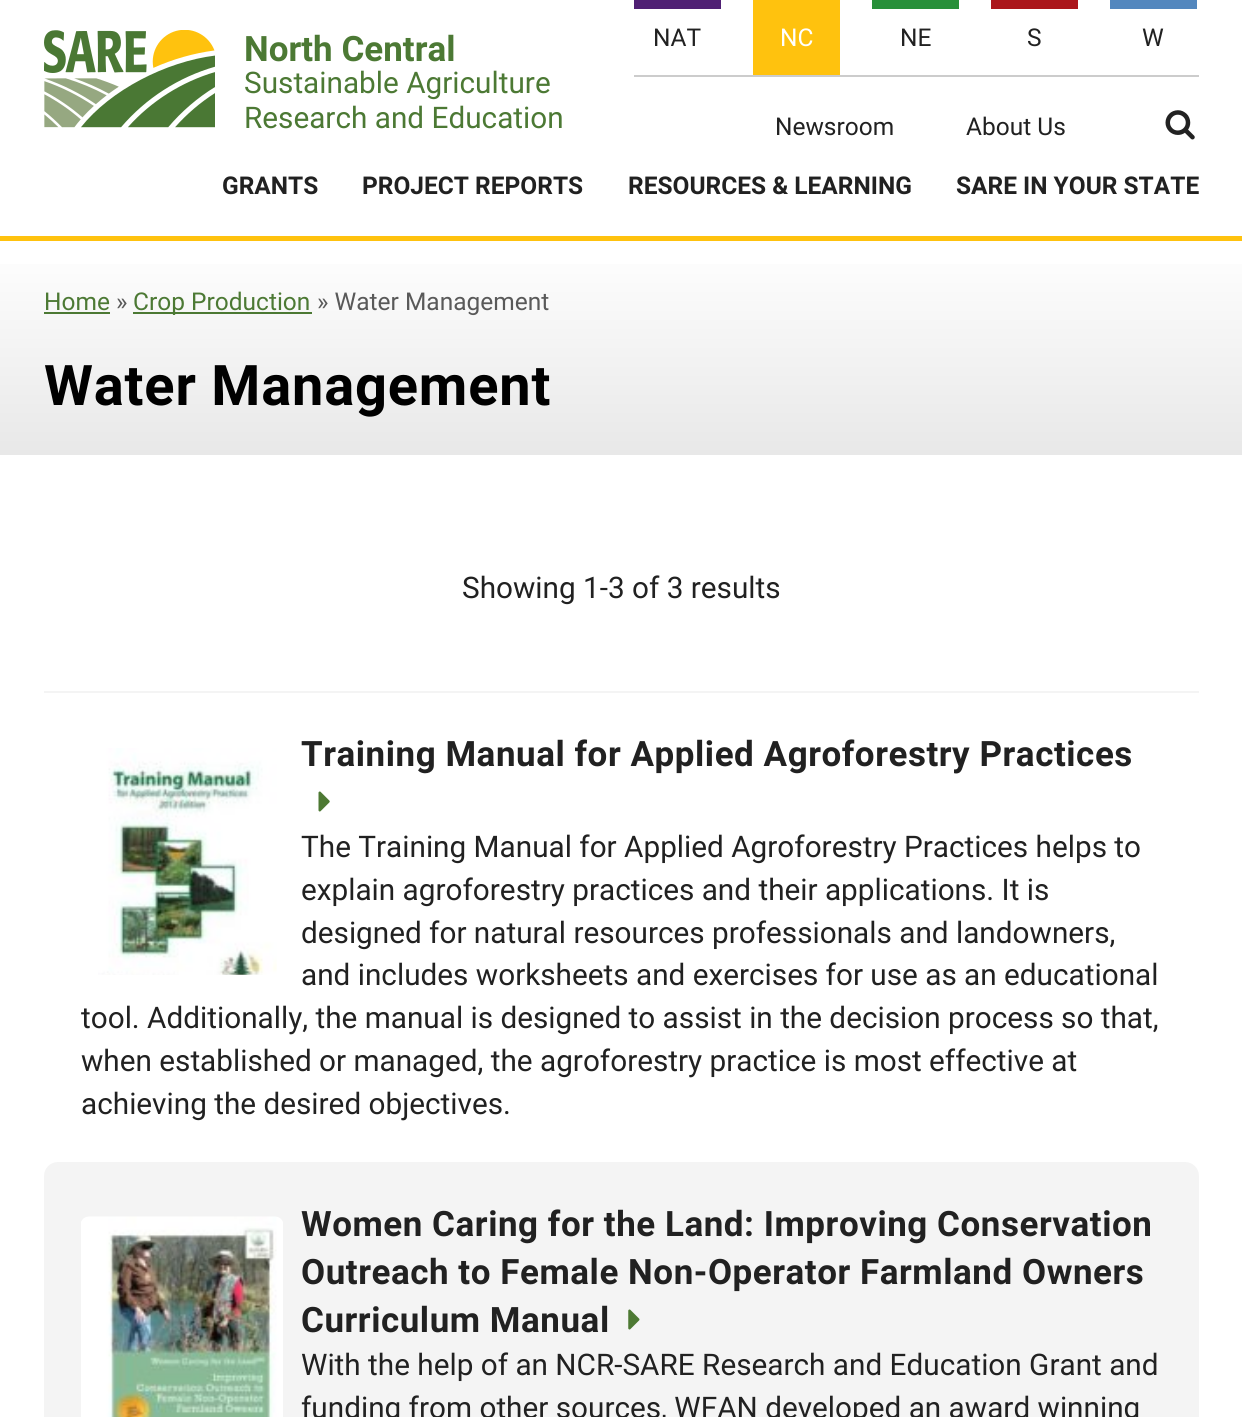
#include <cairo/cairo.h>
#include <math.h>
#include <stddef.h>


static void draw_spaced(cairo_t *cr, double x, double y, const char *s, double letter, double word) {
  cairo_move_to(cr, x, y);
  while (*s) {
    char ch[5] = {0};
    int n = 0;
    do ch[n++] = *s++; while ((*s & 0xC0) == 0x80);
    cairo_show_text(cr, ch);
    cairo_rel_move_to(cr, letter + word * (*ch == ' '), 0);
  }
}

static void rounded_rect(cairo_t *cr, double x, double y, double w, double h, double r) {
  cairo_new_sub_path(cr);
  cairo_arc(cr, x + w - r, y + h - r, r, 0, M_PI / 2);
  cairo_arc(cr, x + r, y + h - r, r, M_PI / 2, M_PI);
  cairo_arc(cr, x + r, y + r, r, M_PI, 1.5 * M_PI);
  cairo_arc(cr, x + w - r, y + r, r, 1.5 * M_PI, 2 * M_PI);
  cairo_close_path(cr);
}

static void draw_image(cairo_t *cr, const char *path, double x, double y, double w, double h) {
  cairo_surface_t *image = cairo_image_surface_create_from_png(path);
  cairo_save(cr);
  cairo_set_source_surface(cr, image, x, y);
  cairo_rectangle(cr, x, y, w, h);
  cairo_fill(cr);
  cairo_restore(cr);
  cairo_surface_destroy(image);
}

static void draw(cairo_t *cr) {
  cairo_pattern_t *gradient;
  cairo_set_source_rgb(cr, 1, 1, 1);
  cairo_paint(cr);
  cairo_set_source_rgb(cr, 1, 194 / 255.0, 14 / 255.0);
  cairo_rectangle(cr, 0, 236, 1242, 5);
  cairo_fill(cr);
  cairo_set_source_rgb(cr, 204 / 255.0, 204 / 255.0, 204 / 255.0);
  cairo_rectangle(cr, 634, 75, 565, 2);
  cairo_fill(cr);
  cairo_set_source_rgb(cr, 80 / 255.0, 32 / 255.0, 116 / 255.0);
  cairo_rectangle(cr, 634, 0, 87, 9);
  cairo_fill(cr);
  cairo_set_source_rgb(cr, 1, 194 / 255.0, 14 / 255.0);
  cairo_rectangle(cr, 753, 0, 87, 75);
  cairo_fill(cr);
  cairo_set_source_rgb(cr, 40 / 255.0, 144 / 255.0, 58 / 255.0);
  cairo_rectangle(cr, 872, 0, 87, 9);
  cairo_fill(cr);
  cairo_set_source_rgb(cr, 171 / 255.0, 22 / 255.0, 27 / 255.0);
  cairo_rectangle(cr, 991, 0, 87, 9);
  cairo_fill(cr);
  cairo_set_source_rgb(cr, 83 / 255.0, 135 / 255.0, 190 / 255.0);
  cairo_rectangle(cr, 1110, 0, 87, 9);
  cairo_fill(cr);
  draw_image(cr, "images/1.png", 44, 30, 171, 98);
  draw_image(cr, "images/2.png", 1165, 110, 30, 30);
  gradient = cairo_pattern_create_linear(621, 241, 621, 455);
  cairo_pattern_add_color_stop_rgba(gradient, 0, 1, 1, 1, 1);
  cairo_pattern_add_color_stop_rgba(gradient, 1, 232 / 255.0, 232 / 255.0, 232 / 255.0, 1);
  cairo_set_source(cr, gradient);
  cairo_pattern_destroy(gradient);
  cairo_rectangle(cr, 0, 264, 1242, 191);
  cairo_fill(cr);
  cairo_set_source_rgb(cr, 76 / 255.0, 121 / 255.0, 52 / 255.0);
  cairo_rectangle(cr, 44, 312, 66, 2);
  cairo_fill(cr);
  cairo_rectangle(cr, 133, 312, 179, 2);
  cairo_fill(cr);
  cairo_set_source_rgb(cr, 244 / 255.0, 244 / 255.0, 244 / 255.0);
  cairo_rectangle(cr, 44, 691, 1155, 2);
  cairo_fill(cr);
  draw_image(cr, "images/3.png", 98, 748, 179, 227);
  draw_image(cr, "images/4.png", 318, 791, 12, 21);
  rounded_rect(cr, 44, 1162, 1155, 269, 14);
  cairo_fill(cr);
  draw_image(cr, "images/5.png", 81, 1216, 202, 201);
  draw_image(cr, "images/6.png", 628, 1309, 12, 21);
  cairo_select_font_face(cr, "Roboto", CAIRO_FONT_SLANT_NORMAL, CAIRO_FONT_WEIGHT_NORMAL);
  cairo_set_font_size(cr, 24.5);
  cairo_set_source_rgb(cr, 33 / 255.0, 33 / 255.0, 33 / 255.0);
  cairo_move_to(cr, 653, 46);
  cairo_show_text(cr, "NAT");
  cairo_set_source_rgb(cr, 1, 1, 1);
  cairo_move_to(cr, 780, 46);
  cairo_show_text(cr, "NC");
  cairo_set_source_rgb(cr, 33 / 255.0, 33 / 255.0, 33 / 255.0);
  cairo_move_to(cr, 900, 46);
  cairo_show_text(cr, "NE");
  cairo_move_to(cr, 1027, 46);
  cairo_show_text(cr, "S");
  cairo_move_to(cr, 1142, 46);
  cairo_show_text(cr, "W");
  cairo_select_font_face(cr, "Roboto", CAIRO_FONT_SLANT_NORMAL, CAIRO_FONT_WEIGHT_BOLD);
  cairo_set_font_size(cr, 35);
  cairo_set_source_rgb(cr, 76 / 255.0, 121 / 255.0, 52 / 255.0);
  cairo_move_to(cr, 244, 61);
  cairo_show_text(cr, "North Central");
  cairo_select_font_face(cr, "Roboto", CAIRO_FONT_SLANT_NORMAL, CAIRO_FONT_WEIGHT_NORMAL);
  cairo_set_font_size(cr, 29.75);
  cairo_move_to(cr, 244, 93);
  cairo_show_text(cr, "Sustainable Agriculture");
  cairo_move_to(cr, 244, 128);
  cairo_show_text(cr, "Research and Education");
  cairo_set_font_size(cr, 24.5);
  cairo_set_source_rgb(cr, 33 / 255.0, 33 / 255.0, 33 / 255.0);
  cairo_move_to(cr, 775, 135);
  cairo_show_text(cr, "Newsroom");
  cairo_move_to(cr, 966, 135);
  cairo_show_text(cr, "About Us");
  cairo_select_font_face(cr, "Roboto", CAIRO_FONT_SLANT_NORMAL, CAIRO_FONT_WEIGHT_BOLD);
  cairo_move_to(cr, 222, 194);
  cairo_show_text(cr, "GRANTS");
  cairo_move_to(cr, 362, 194);
  cairo_show_text(cr, "PROJECT REPORTS");
  cairo_move_to(cr, 628, 194);
  cairo_show_text(cr, "RESOURCES & LEARNING");
  cairo_move_to(cr, 956, 194);
  cairo_show_text(cr, "SARE IN YOUR STATE");
  cairo_select_font_face(cr, "Roboto", CAIRO_FONT_SLANT_NORMAL, CAIRO_FONT_WEIGHT_NORMAL);
  cairo_set_source_rgb(cr, 76 / 255.0, 121 / 255.0, 52 / 255.0);
  cairo_move_to(cr, 44, 310);
  cairo_show_text(cr, "Home");
  cairo_set_source_rgb(cr, 89 / 255.0, 89 / 255.0, 89 / 255.0);
  cairo_move_to(cr, 116, 310);
  cairo_show_text(cr, "»");
  cairo_set_source_rgb(cr, 76 / 255.0, 121 / 255.0, 52 / 255.0);
  cairo_move_to(cr, 133, 310);
  cairo_show_text(cr, "Crop Production");
  cairo_set_source_rgb(cr, 89 / 255.0, 89 / 255.0, 89 / 255.0);
  cairo_move_to(cr, 317, 310);
  cairo_show_text(cr, "» Water Management");
  cairo_select_font_face(cr, "Roboto", CAIRO_FONT_SLANT_NORMAL, CAIRO_FONT_WEIGHT_BOLD);
  cairo_set_font_size(cr, 56);
  cairo_set_source_rgb(cr, 0, 0, 0);
  draw_spaced(cr, 44, 405, "Water Management", 0.8, 0);
  cairo_select_font_face(cr, "Roboto", CAIRO_FONT_SLANT_NORMAL, CAIRO_FONT_WEIGHT_NORMAL);
  cairo_set_font_size(cr, 29.75);
  cairo_set_source_rgb(cr, 33 / 255.0, 33 / 255.0, 33 / 255.0);
  cairo_move_to(cr, 462, 598);
  cairo_show_text(cr, "Showing 1-3 of 3 results");
  cairo_select_font_face(cr, "Roboto", CAIRO_FONT_SLANT_NORMAL, CAIRO_FONT_WEIGHT_BOLD);
  cairo_set_font_size(cr, 35);
  draw_spaced(cr, 301, 766, "Training Manual for Applied Agroforestry Practices", 0.53, 0);
  cairo_select_font_face(cr, "Roboto", CAIRO_FONT_SLANT_NORMAL, CAIRO_FONT_WEIGHT_NORMAL);
  cairo_set_font_size(cr, 29.75);
  cairo_move_to(cr, 301, 857);
  cairo_show_text(cr, "The Training Manual for Applied Agroforestry Practices helps to");
  cairo_move_to(cr, 301, 900);
  cairo_show_text(cr, "explain agroforestry practices and their applications. It is");
  cairo_move_to(cr, 301, 943);
  cairo_show_text(cr, "designed for natural resources professionals and landowners,");
  cairo_move_to(cr, 301, 985);
  cairo_show_text(cr, "and includes worksheets and exercises for use as an educational");
  cairo_move_to(cr, 81, 1028);
  cairo_show_text(cr, "tool. Additionally, the manual is designed to assist in the decision process so that,");
  cairo_move_to(cr, 81, 1071);
  cairo_show_text(cr, "when established or managed, the agroforestry practice is most effective at");
  cairo_move_to(cr, 81, 1114);
  cairo_show_text(cr, "achieving the desired objectives.");
  cairo_select_font_face(cr, "Roboto", CAIRO_FONT_SLANT_NORMAL, CAIRO_FONT_WEIGHT_BOLD);
  cairo_set_font_size(cr, 35);
  draw_spaced(cr, 301, 1236, "Women Caring for the Land: Improving Conservation", 0.53, 0);
  draw_spaced(cr, 301, 1284, "Outreach to Female Non-Operator Farmland Owners", 0.53, 0);
  draw_spaced(cr, 301, 1332, "Curriculum Manual", 0.53, 0);
  cairo_select_font_face(cr, "Roboto", CAIRO_FONT_SLANT_NORMAL, CAIRO_FONT_WEIGHT_NORMAL);
  cairo_set_font_size(cr, 29.75);
  cairo_move_to(cr, 301, 1375);
  cairo_show_text(cr, "With the help of an NCR-SARE Research and Education Grant and");
  cairo_move_to(cr, 301, 1418);
  cairo_show_text(cr, "funding from other sources, WFAN developed an award winning");
}

int main(void) {
  cairo_surface_t *surface = cairo_image_surface_create(CAIRO_FORMAT_RGB24, 1242, 1417);
  cairo_t *cr = cairo_create(surface);
  cairo_font_options_t *options = cairo_font_options_create();
  cairo_font_options_set_hint_metrics(options, CAIRO_HINT_METRICS_OFF);
  cairo_font_options_set_hint_style(options, CAIRO_HINT_STYLE_NONE);
  cairo_set_font_options(cr, options);
  cairo_set_miter_limit(cr, 4);
  draw(cr);
  cairo_surface_write_to_png(surface, "out.png");
  cairo_font_options_destroy(options);
  cairo_destroy(cr);
  cairo_surface_destroy(surface);
  return 0;
}
